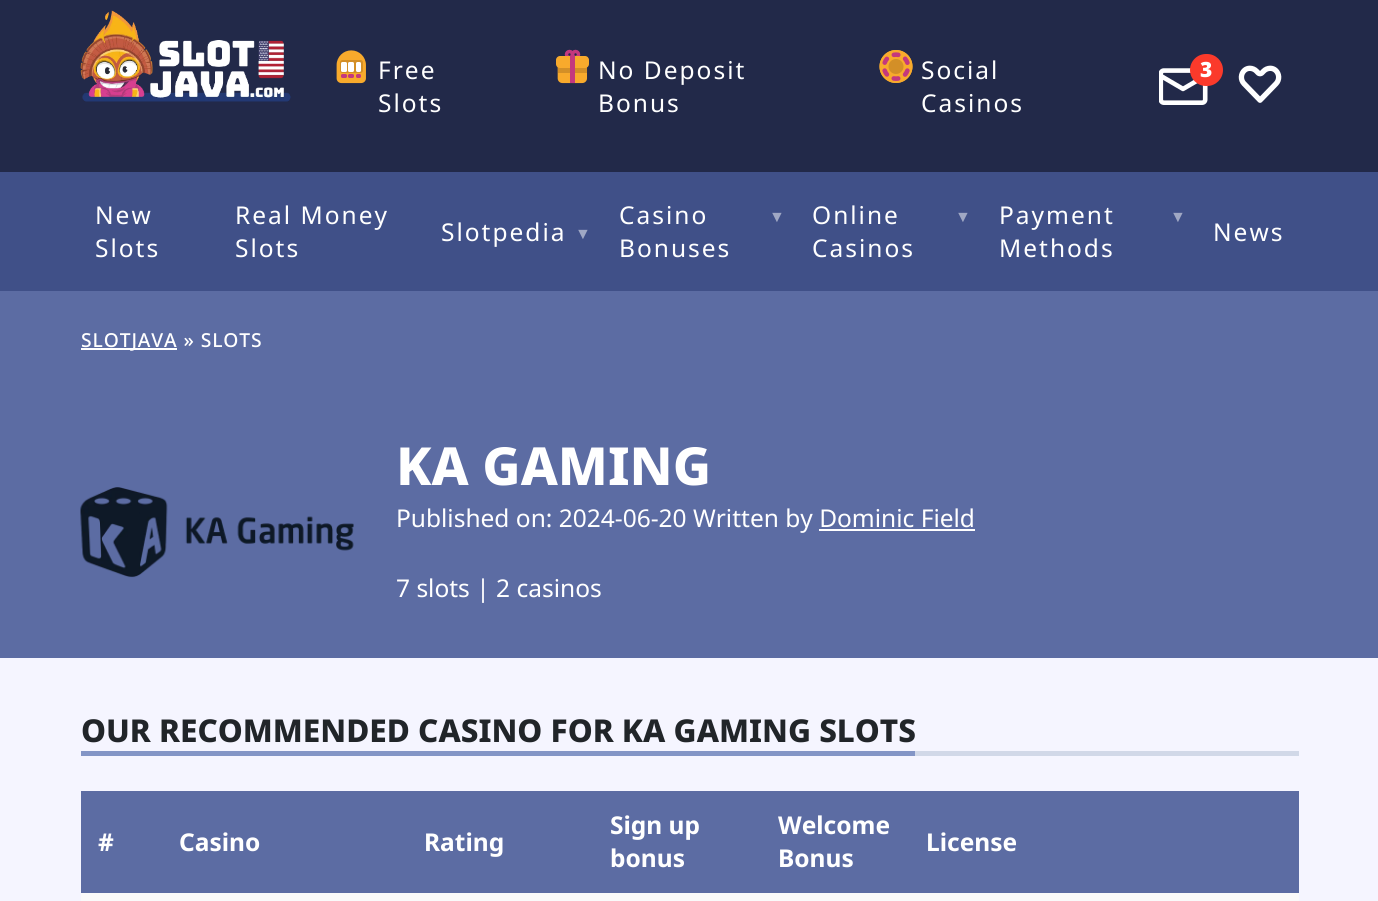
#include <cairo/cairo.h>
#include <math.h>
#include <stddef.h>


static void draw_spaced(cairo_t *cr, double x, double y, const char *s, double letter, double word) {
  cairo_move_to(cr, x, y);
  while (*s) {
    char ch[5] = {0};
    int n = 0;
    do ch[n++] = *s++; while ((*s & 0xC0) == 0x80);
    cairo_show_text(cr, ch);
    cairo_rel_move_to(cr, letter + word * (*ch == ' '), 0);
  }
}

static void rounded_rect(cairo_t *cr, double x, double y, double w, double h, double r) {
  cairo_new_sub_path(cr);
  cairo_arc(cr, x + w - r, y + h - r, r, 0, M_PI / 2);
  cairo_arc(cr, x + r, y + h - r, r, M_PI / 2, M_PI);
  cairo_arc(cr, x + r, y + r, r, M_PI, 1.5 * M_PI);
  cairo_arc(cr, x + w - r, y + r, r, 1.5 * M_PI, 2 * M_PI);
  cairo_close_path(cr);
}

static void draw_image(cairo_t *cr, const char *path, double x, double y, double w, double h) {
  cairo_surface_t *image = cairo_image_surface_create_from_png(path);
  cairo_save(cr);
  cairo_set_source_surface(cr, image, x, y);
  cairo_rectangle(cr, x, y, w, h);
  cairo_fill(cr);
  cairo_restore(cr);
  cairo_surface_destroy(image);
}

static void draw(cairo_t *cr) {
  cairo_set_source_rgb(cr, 245 / 255.0, 245 / 255.0, 1);
  cairo_paint(cr);
  cairo_set_source_rgb(cr, 34 / 255.0, 41 / 255.0, 73 / 255.0);
  cairo_rectangle(cr, 0, 0, 1378, 172);
  cairo_fill(cr);
  draw_image(cr, "images/1.png", 80, 10, 211, 92);
  draw_image(cr, "images/2.png", 336, 50, 30, 34);
  draw_image(cr, "images/3.png", 556, 49, 33, 35);
  draw_image(cr, "images/4.png", 879, 50, 34, 33);
  draw_image(cr, "images/5.png", 1159, 68, 49, 37);
  cairo_set_source_rgb(cr, 251 / 255.0, 58 / 255.0, 43 / 255.0);
  rounded_rect(cr, 1190, 54, 33, 32, 16);
  cairo_fill(cr);
  draw_image(cr, "images/6.png", 1238, 65, 44, 38);
  cairo_set_source_rgb(cr, 64 / 255.0, 80 / 255.0, 136 / 255.0);
  cairo_rectangle(cr, 0, 172, 1378, 119);
  cairo_fill(cr);
  cairo_set_source_rgb(cr, 92 / 255.0, 108 / 255.0, 163 / 255.0);
  cairo_rectangle(cr, 0, 291, 1378, 367);
  cairo_fill(cr);
  cairo_set_source_rgb(cr, 1, 1, 1);
  cairo_rectangle(cr, 81, 348, 96, 2);
  cairo_fill(cr);
  draw_image(cr, "images/7.png", 80, 487, 274, 91);
  cairo_rectangle(cr, 819, 529, 156, 2);
  cairo_fill(cr);
  cairo_set_source_rgb(cr, 209 / 255.0, 216 / 255.0, 232 / 255.0);
  cairo_rectangle(cr, 915, 751, 384, 5);
  cairo_fill(cr);
  cairo_set_source_rgb(cr, 131 / 255.0, 149 / 255.0, 198 / 255.0);
  cairo_rectangle(cr, 81, 751, 834, 5);
  cairo_fill(cr);
  cairo_set_source_rgb(cr, 92 / 255.0, 108 / 255.0, 163 / 255.0);
  cairo_rectangle(cr, 81, 791, 1218, 102);
  cairo_fill(cr);
  cairo_set_source_rgb(cr, 250 / 255.0, 250 / 255.0, 250 / 255.0);
  cairo_rectangle(cr, 81, 893, 1218, 8);
  cairo_fill(cr);
  cairo_select_font_face(cr, "Noto Sans", CAIRO_FONT_SLANT_NORMAL, CAIRO_FONT_WEIGHT_NORMAL);
  cairo_set_font_size(cr, 24.5);
  cairo_set_source_rgb(cr, 1, 1, 1);
  draw_spaced(cr, 378, 79, "Free", 2, 0);
  draw_spaced(cr, 378, 112, "Slots", 2, 0);
  draw_spaced(cr, 598, 79, "No Deposit", 2, 0);
  draw_spaced(cr, 598, 112, "Bonus", 2, 0);
  draw_spaced(cr, 921, 79, "Social", 2, 0);
  draw_spaced(cr, 921, 112, "Casinos", 2, 0);
  cairo_select_font_face(cr, "Noto Sans Black", CAIRO_FONT_SLANT_NORMAL, CAIRO_FONT_WEIGHT_NORMAL);
  cairo_set_font_size(cr, 21);
  cairo_move_to(cr, 1200, 77);
  cairo_show_text(cr, "3");
  cairo_select_font_face(cr, "Noto Sans", CAIRO_FONT_SLANT_NORMAL, CAIRO_FONT_WEIGHT_NORMAL);
  cairo_set_font_size(cr, 24.5);
  draw_spaced(cr, 95, 224, "New", 2, 0);
  draw_spaced(cr, 95, 257, "Slots", 2, 0);
  draw_spaced(cr, 235, 224, "Real Money", 2, 0);
  draw_spaced(cr, 235, 257, "Slots", 2, 0);
  draw_spaced(cr, 441, 241, "Slotpedia", 2, 0);
  cairo_select_font_face(cr, "Liberation Sans", CAIRO_FONT_SLANT_NORMAL, CAIRO_FONT_WEIGHT_BOLD);
  cairo_set_font_size(cr, 16);
  cairo_set_source_rgb(cr, 160 / 255.0, 168 / 255.0, 196 / 255.0);
  draw_spaced(cr, 575, 239, "▼", 2, 0);
  cairo_select_font_face(cr, "Noto Sans", CAIRO_FONT_SLANT_NORMAL, CAIRO_FONT_WEIGHT_NORMAL);
  cairo_set_font_size(cr, 24.5);
  cairo_set_source_rgb(cr, 1, 1, 1);
  draw_spaced(cr, 619, 224, "Casino", 2, 0);
  draw_spaced(cr, 619, 257, "Bonuses", 2, 0);
  cairo_select_font_face(cr, "Liberation Sans", CAIRO_FONT_SLANT_NORMAL, CAIRO_FONT_WEIGHT_BOLD);
  cairo_set_font_size(cr, 16);
  cairo_set_source_rgb(cr, 160 / 255.0, 168 / 255.0, 196 / 255.0);
  draw_spaced(cr, 769, 222, "▼", 2, 0);
  cairo_select_font_face(cr, "Noto Sans", CAIRO_FONT_SLANT_NORMAL, CAIRO_FONT_WEIGHT_NORMAL);
  cairo_set_font_size(cr, 24.5);
  cairo_set_source_rgb(cr, 1, 1, 1);
  draw_spaced(cr, 812, 224, "Online", 2, 0);
  draw_spaced(cr, 812, 257, "Casinos", 2, 0);
  cairo_select_font_face(cr, "Liberation Sans", CAIRO_FONT_SLANT_NORMAL, CAIRO_FONT_WEIGHT_BOLD);
  cairo_set_font_size(cr, 16);
  cairo_set_source_rgb(cr, 160 / 255.0, 168 / 255.0, 196 / 255.0);
  draw_spaced(cr, 955, 222, "▼", 2, 0);
  cairo_select_font_face(cr, "Noto Sans", CAIRO_FONT_SLANT_NORMAL, CAIRO_FONT_WEIGHT_NORMAL);
  cairo_set_font_size(cr, 24.5);
  cairo_set_source_rgb(cr, 1, 1, 1);
  draw_spaced(cr, 999, 224, "Payment", 2, 0);
  draw_spaced(cr, 999, 257, "Methods", 2, 0);
  cairo_select_font_face(cr, "Liberation Sans", CAIRO_FONT_SLANT_NORMAL, CAIRO_FONT_WEIGHT_BOLD);
  cairo_set_font_size(cr, 16);
  cairo_set_source_rgb(cr, 160 / 255.0, 168 / 255.0, 196 / 255.0);
  draw_spaced(cr, 1170, 222, "▼", 2, 0);
  cairo_select_font_face(cr, "Noto Sans", CAIRO_FONT_SLANT_NORMAL, CAIRO_FONT_WEIGHT_NORMAL);
  cairo_set_font_size(cr, 24.5);
  cairo_set_source_rgb(cr, 1, 1, 1);
  draw_spaced(cr, 1213, 241, "News", 2, 0);
  cairo_select_font_face(cr, "Noto Sans Medium", CAIRO_FONT_SLANT_NORMAL, CAIRO_FONT_WEIGHT_NORMAL);
  cairo_set_font_size(cr, 19.25);
  draw_spaced(cr, 81, 347, "SLOTJAVA » SLOTS", 0.9, 0);
  cairo_select_font_face(cr, "Noto Sans ExtraBold", CAIRO_FONT_SLANT_NORMAL, CAIRO_FONT_WEIGHT_NORMAL);
  cairo_set_font_size(cr, 52.5);
  cairo_move_to(cr, 396, 485);
  cairo_show_text(cr, "KA GAMING");
  cairo_select_font_face(cr, "Noto Sans", CAIRO_FONT_SLANT_NORMAL, CAIRO_FONT_WEIGHT_NORMAL);
  cairo_set_font_size(cr, 24.5);
  cairo_move_to(cr, 396, 527);
  cairo_show_text(cr, "Published on: 2024-06-20 Written by Dominic Field");
  cairo_move_to(cr, 396, 597);
  cairo_show_text(cr, "7 slots | 2 casinos");
  cairo_select_font_face(cr, "Noto Sans ExtraBold", CAIRO_FONT_SLANT_NORMAL, CAIRO_FONT_WEIGHT_NORMAL);
  cairo_set_font_size(cr, 31.5);
  cairo_set_source_rgb(cr, 33 / 255.0, 37 / 255.0, 41 / 255.0);
  cairo_move_to(cr, 81, 742);
  cairo_show_text(cr, "OUR RECOMMENDED CASINO FOR KA GAMING SLOTS");
  cairo_select_font_face(cr, "Noto Sans", CAIRO_FONT_SLANT_NORMAL, CAIRO_FONT_WEIGHT_BOLD);
  cairo_set_font_size(cr, 24.5);
  cairo_set_source_rgb(cr, 1, 1, 1);
  cairo_move_to(cr, 98, 851);
  cairo_show_text(cr, "#");
  cairo_move_to(cr, 179, 851);
  cairo_show_text(cr, "Casino");
  cairo_move_to(cr, 424, 851);
  cairo_show_text(cr, "Rating");
  cairo_move_to(cr, 610, 834);
  cairo_show_text(cr, "Sign up");
  cairo_move_to(cr, 610, 867);
  cairo_show_text(cr, "bonus");
  cairo_move_to(cr, 778, 834);
  cairo_show_text(cr, "Welcome");
  cairo_move_to(cr, 778, 867);
  cairo_show_text(cr, "Bonus");
  cairo_move_to(cr, 926, 851);
  cairo_show_text(cr, "License");
}

int main(void) {
  cairo_surface_t *surface = cairo_image_surface_create(CAIRO_FORMAT_RGB24, 1378, 901);
  cairo_t *cr = cairo_create(surface);
  cairo_font_options_t *options = cairo_font_options_create();
  cairo_font_options_set_hint_metrics(options, CAIRO_HINT_METRICS_OFF);
  cairo_font_options_set_hint_style(options, CAIRO_HINT_STYLE_NONE);
  cairo_set_font_options(cr, options);
  cairo_set_miter_limit(cr, 4);
  draw(cr);
  cairo_surface_write_to_png(surface, "out.png");
  cairo_font_options_destroy(options);
  cairo_destroy(cr);
  cairo_surface_destroy(surface);
  return 0;
}
